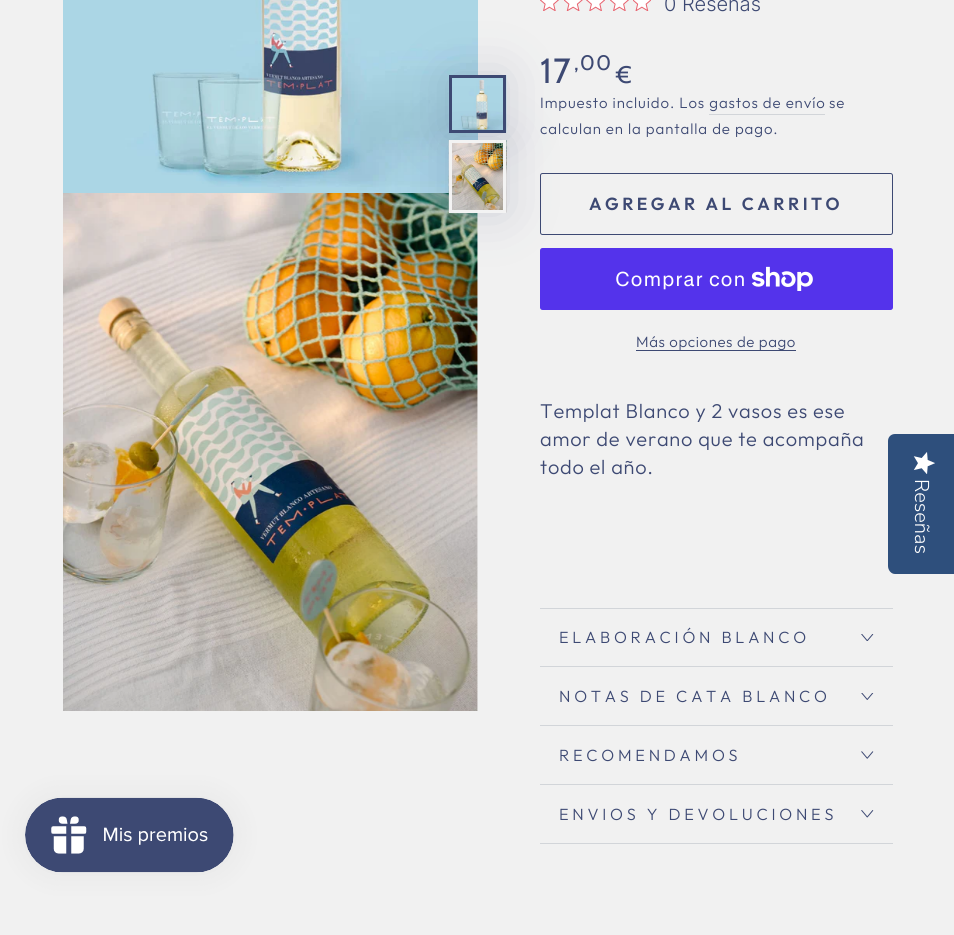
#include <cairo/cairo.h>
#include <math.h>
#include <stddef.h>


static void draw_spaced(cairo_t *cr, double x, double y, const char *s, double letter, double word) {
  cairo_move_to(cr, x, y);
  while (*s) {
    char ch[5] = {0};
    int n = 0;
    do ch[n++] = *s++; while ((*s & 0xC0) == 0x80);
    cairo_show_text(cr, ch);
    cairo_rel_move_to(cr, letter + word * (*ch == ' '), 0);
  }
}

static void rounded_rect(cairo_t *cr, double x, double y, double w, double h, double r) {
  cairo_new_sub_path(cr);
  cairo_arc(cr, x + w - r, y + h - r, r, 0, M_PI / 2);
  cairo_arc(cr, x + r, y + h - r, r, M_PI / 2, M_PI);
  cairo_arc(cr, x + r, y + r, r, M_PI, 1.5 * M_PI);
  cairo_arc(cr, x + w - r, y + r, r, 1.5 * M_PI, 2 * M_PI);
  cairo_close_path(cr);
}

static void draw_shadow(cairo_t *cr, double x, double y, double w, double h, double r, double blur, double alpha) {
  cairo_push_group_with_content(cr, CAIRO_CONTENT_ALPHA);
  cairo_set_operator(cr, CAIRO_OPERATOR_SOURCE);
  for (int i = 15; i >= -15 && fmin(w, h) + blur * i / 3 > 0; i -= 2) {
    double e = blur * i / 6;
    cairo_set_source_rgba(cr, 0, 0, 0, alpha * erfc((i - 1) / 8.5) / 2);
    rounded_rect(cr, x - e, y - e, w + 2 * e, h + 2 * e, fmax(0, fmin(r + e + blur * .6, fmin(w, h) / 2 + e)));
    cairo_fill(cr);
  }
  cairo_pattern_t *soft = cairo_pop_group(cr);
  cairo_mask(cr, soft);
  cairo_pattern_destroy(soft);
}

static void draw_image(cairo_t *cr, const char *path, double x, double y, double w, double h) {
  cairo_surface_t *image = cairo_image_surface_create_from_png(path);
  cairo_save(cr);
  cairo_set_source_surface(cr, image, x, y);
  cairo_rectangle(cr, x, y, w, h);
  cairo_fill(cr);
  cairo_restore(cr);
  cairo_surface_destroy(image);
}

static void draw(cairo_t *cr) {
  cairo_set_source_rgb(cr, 241 / 255.0, 241 / 255.0, 241 / 255.0);
  cairo_paint(cr);
  draw_image(cr, "images/1.png", 63, 0, 415, 193);
  draw_image(cr, "images/2.png", 63, 193, 415, 518);
  draw_image(cr, "images/5.png", 540, 0, 19, 11);
  draw_image(cr, "images/6.png", 564, 0, 19, 11);
  rounded_rect(cr, 540.5, 173.5, 352, 61, 2);
  cairo_set_source_rgb(cr, 61 / 255.0, 73 / 255.0, 115 / 255.0);
  cairo_set_line_width(cr, 1);
  cairo_stroke(cr);
  cairo_set_source_rgb(cr, 61 / 255.0, 73 / 255.0, 115 / 255.0);
  draw_shadow(cr, 449, 75, 57, 58, 0, 25, 0.2);
  draw_image(cr, "images/3.png", 448, 75, 59, 58);
  cairo_rectangle(cr, 450.5, 76.5, 54, 55);
  cairo_set_source_rgb(cr, 61 / 255.0, 73 / 255.0, 115 / 255.0);
  cairo_set_line_width(cr, 3);
  cairo_stroke(cr);
  cairo_set_source_rgb(cr, 84 / 255.0, 51 / 255.0, 235 / 255.0);
  rounded_rect(cr, 540, 248, 353, 62, 2.5);
  cairo_fill(cr);
  cairo_set_source_rgb(cr, 61 / 255.0, 73 / 255.0, 115 / 255.0);
  draw_shadow(cr, 449, 140, 57, 73, 0, 25, 0.2);
  draw_image(cr, "images/4.png", 448, 140, 59, 73);
  cairo_rectangle(cr, 450.5, 141.5, 54, 70);
  cairo_set_source_rgb(cr, 243 / 255.0, 243 / 255.0, 243 / 255.0);
  cairo_stroke(cr);
  draw_image(cr, "images/7.png", 586, 0, 19, 11);
  draw_image(cr, "images/5.png", 610, 0, 19, 11);
  draw_image(cr, "images/8.png", 633, 0, 18, 11);
  cairo_set_source_rgb(cr, 210 / 255.0, 213 / 255.0, 217 / 255.0);
  cairo_rectangle(cr, 709, 114, 116, 1);
  cairo_fill(cr);
  draw_image(cr, "images/9.png", 751, 266, 62, 25);
  cairo_set_source_rgb(cr, 61 / 255.0, 73 / 255.0, 115 / 255.0);
  cairo_rectangle(cr, 636, 350, 160, 1);
  cairo_fill(cr);
  cairo_set_source_rgb(cr, 210 / 255.0, 213 / 255.0, 217 / 255.0);
  cairo_rectangle(cr, 540, 608, 353, 1);
  cairo_fill(cr);
  cairo_rectangle(cr, 540, 666, 353, 1);
  cairo_fill(cr);
  draw_image(cr, "images/10.png", 861, 634, 13, 7);
  cairo_rectangle(cr, 540, 725, 353, 1);
  cairo_fill(cr);
  draw_image(cr, "images/11.png", 861, 693, 13, 7);
  cairo_rectangle(cr, 540, 784, 353, 1);
  cairo_fill(cr);
  draw_image(cr, "images/12.png", 861, 751, 13, 8);
  cairo_rectangle(cr, 540, 843, 353, 1);
  cairo_fill(cr);
  draw_image(cr, "images/13.png", 861, 810, 13, 8);
  cairo_set_source_rgb(cr, 46 / 255.0, 79 / 255.0, 124 / 255.0);
  cairo_new_path(cr);
  cairo_move_to(cr, 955, 434);
  cairo_line_to(cr, 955, 574);
  cairo_line_to(cr, 895, 574);
  cairo_curve_to(cr, 891, 574, 888, 570, 888, 566);
  cairo_line_to(cr, 888, 441);
  cairo_curve_to(cr, 888, 437, 891, 434, 895, 434);
  cairo_close_path(cr);
  cairo_fill(cr);
  draw_image(cr, "images/14.png", 913, 452, 22, 22);
  cairo_set_source_rgb(cr, 0, 0, 0);
  draw_shadow(cr, 25, 798, 209, 75, 37.5, 15.5, 0.05);
  draw_image(cr, "images/15.png", 25, 797, 209, 76);
  cairo_select_font_face(cr, "Inter Light", CAIRO_FONT_SLANT_NORMAL, CAIRO_FONT_WEIGHT_NORMAL);
  cairo_set_font_size(cr, 20);
  cairo_set_source_rgb(cr, 61 / 255.0, 73 / 255.0, 115 / 255.0);
  cairo_move_to(cr, 664, 11);
  cairo_show_text(cr, "0 Reseñas");
  cairo_select_font_face(cr, "Cabin", CAIRO_FONT_SLANT_NORMAL, CAIRO_FONT_WEIGHT_NORMAL);
  cairo_set_font_size(cr, 35);
  draw_spaced(cr, 540, 83, "17", 1.5, 0);
  cairo_set_font_size(cr, 21);
  draw_spaced(cr, 574, 70, ",00", 1.5, 0);
  cairo_set_font_size(cr, 24);
  draw_spaced(cr, 616, 83, "€", 1.5, 0);
  cairo_select_font_face(cr, "Outfit Light", CAIRO_FONT_SLANT_NORMAL, CAIRO_FONT_WEIGHT_NORMAL);
  cairo_set_font_size(cr, 15);
  draw_spaced(cr, 540, 108, "Impuesto incluido. Los gastos de envío", 0.9, 0);
  draw_spaced(cr, 829, 108, "se", 0.9, 0);
  draw_spaced(cr, 540, 134, "calculan en la pantalla de pago.", 0.9, 0);
  cairo_select_font_face(cr, "Outfit SemiBold", CAIRO_FONT_SLANT_NORMAL, CAIRO_FONT_WEIGHT_NORMAL);
  cairo_set_font_size(cr, 17.5);
  draw_spaced(cr, 589, 210, "AGREGAR AL CARRITO", 3.5, 0);
  cairo_select_font_face(cr, "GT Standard", CAIRO_FONT_SLANT_NORMAL, CAIRO_FONT_WEIGHT_NORMAL);
  cairo_set_font_size(cr, 20);
  cairo_set_source_rgb(cr, 1, 1, 1);
  draw_spaced(cr, 615, 286, "Comprar con", 0.75, 0);
  cairo_select_font_face(cr, "Outfit Light", CAIRO_FONT_SLANT_NORMAL, CAIRO_FONT_WEIGHT_NORMAL);
  cairo_set_font_size(cr, 15);
  cairo_set_source_rgb(cr, 61 / 255.0, 73 / 255.0, 115 / 255.0);
  draw_spaced(cr, 636, 347, "Más opciones de pago", 0.6, 0);
  cairo_set_font_size(cr, 20);
  draw_spaced(cr, 540, 418, "Templat Blanco y 2 vasos es ese", 0.75, 0);
  draw_spaced(cr, 540, 446, "amor de verano que te acompaña", 0.75, 0);
  draw_spaced(cr, 540, 474, "todo el año.", 0.75, 0);
  cairo_set_font_size(cr, 16.25);
  draw_spaced(cr, 559, 643, "ELABORACIÓN BLANCO", 3.75, 0);
  draw_spaced(cr, 559, 702, "NOTAS DE CATA BLANCO", 3.75, 0);
  draw_spaced(cr, 559, 761, "RECOMENDAMOS", 3.75, 0);
  draw_spaced(cr, 559, 820, "ENVIOS Y DEVOLUCIONES", 3.75, 0);
  cairo_select_font_face(cr, "Nunito Sans Light", CAIRO_FONT_SLANT_NORMAL, CAIRO_FONT_WEIGHT_NORMAL);
  cairo_set_font_size(cr, 20);
  cairo_set_source_rgb(cr, 1, 1, 1);
  cairo_save(cr);
  cairo_translate(cr, 915, 479);
  cairo_rotate(cr, 90 * M_PI / 180);
  cairo_move_to(cr, 0, 0);
  cairo_show_text(cr, "Reseñas");
  cairo_restore(cr);
}

int main(void) {
  cairo_surface_t *surface = cairo_image_surface_create(CAIRO_FORMAT_RGB24, 954, 935);
  cairo_t *cr = cairo_create(surface);
  cairo_font_options_t *options = cairo_font_options_create();
  cairo_font_options_set_hint_metrics(options, CAIRO_HINT_METRICS_OFF);
  cairo_font_options_set_hint_style(options, CAIRO_HINT_STYLE_NONE);
  cairo_set_font_options(cr, options);
  cairo_set_miter_limit(cr, 4);
  draw(cr);
  cairo_surface_write_to_png(surface, "out.png");
  cairo_font_options_destroy(options);
  cairo_destroy(cr);
  cairo_surface_destroy(surface);
  return 0;
}
